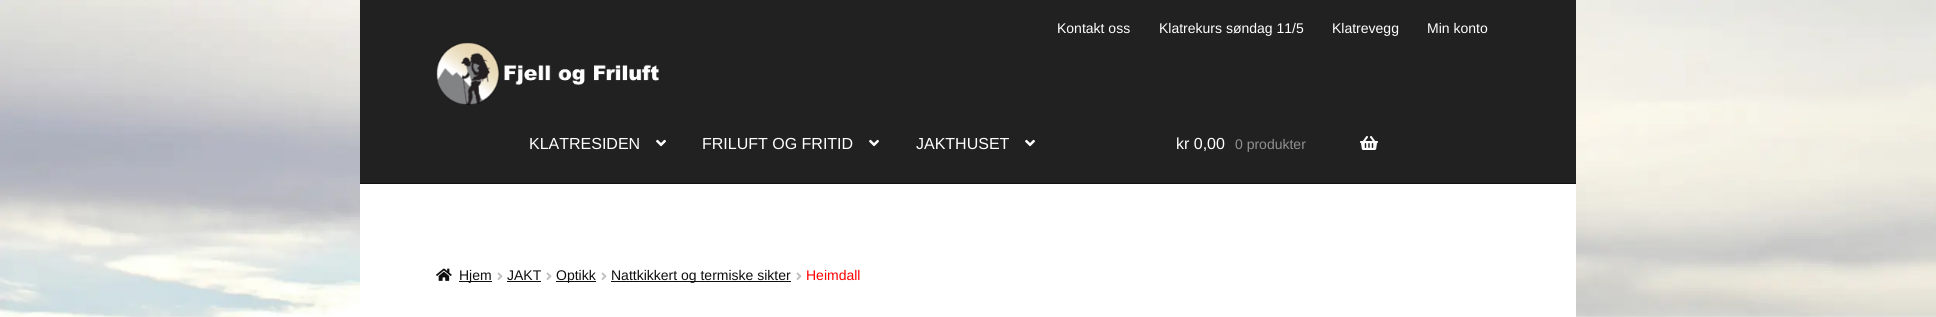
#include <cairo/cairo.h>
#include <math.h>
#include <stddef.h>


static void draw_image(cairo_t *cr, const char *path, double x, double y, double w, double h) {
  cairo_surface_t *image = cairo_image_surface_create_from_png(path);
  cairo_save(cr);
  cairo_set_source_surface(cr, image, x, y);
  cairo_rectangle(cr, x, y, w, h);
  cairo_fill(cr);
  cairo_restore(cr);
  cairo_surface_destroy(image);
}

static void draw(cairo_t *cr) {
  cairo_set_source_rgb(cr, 1, 1, 1);
  cairo_paint(cr);
  draw_image(cr, "images/1.png", 0, 0, 1936, 317);
  cairo_set_source_rgb(cr, 1, 1, 1);
  cairo_rectangle(cr, 360, 184, 1216, 133);
  cairo_fill(cr);
  cairo_set_source_rgb(cr, 33 / 255.0, 33 / 255.0, 33 / 255.0);
  cairo_rectangle(cr, 360, 0, 1216, 183);
  cairo_fill(cr);
  cairo_set_source_rgb(cr, 18 / 255.0, 18 / 255.0, 18 / 255.0);
  cairo_rectangle(cr, 360, 183, 1216, 1);
  cairo_fill(cr);
  draw_image(cr, "images/2.png", 436, 42, 223, 63);
  draw_image(cr, "images/3.png", 656, 139, 10, 8);
  draw_image(cr, "images/3.png", 869, 139, 10, 8);
  draw_image(cr, "images/3.png", 1025, 139, 10, 8);
  draw_image(cr, "images/4.png", 1360, 136, 18, 14);
  draw_image(cr, "images/5.png", 436, 268, 16, 13);
  cairo_set_source_rgb(cr, 15 / 255.0, 15 / 255.0, 15 / 255.0);
  cairo_rectangle(cr, 459, 281, 33, 1);
  cairo_fill(cr);
  draw_image(cr, "images/6.png", 497, 272, 6, 8);
  cairo_rectangle(cr, 507, 281, 34, 1);
  cairo_fill(cr);
  draw_image(cr, "images/6.png", 546, 272, 6, 8);
  cairo_rectangle(cr, 556, 281, 40, 1);
  cairo_fill(cr);
  draw_image(cr, "images/6.png", 601, 272, 6, 8);
  cairo_rectangle(cr, 611, 281, 180, 1);
  cairo_fill(cr);
  draw_image(cr, "images/6.png", 796, 272, 6, 8);
  cairo_select_font_face(cr, "Liberation Sans", CAIRO_FONT_SLANT_NORMAL, CAIRO_FONT_WEIGHT_NORMAL);
  cairo_set_font_size(cr, 14);
  cairo_set_source_rgb(cr, 1, 1, 1);
  cairo_move_to(cr, 1057, 33);
  cairo_show_text(cr, "Kontakt oss");
  cairo_move_to(cr, 1159, 33);
  cairo_show_text(cr, "Klatrekurs søndag 11/5");
  cairo_move_to(cr, 1332, 33);
  cairo_show_text(cr, "Klatrevegg");
  cairo_move_to(cr, 1427, 33);
  cairo_show_text(cr, "Min konto");
  cairo_set_font_size(cr, 16);
  cairo_move_to(cr, 529, 149);
  cairo_show_text(cr, "KLATRESIDEN");
  cairo_move_to(cr, 702, 149);
  cairo_show_text(cr, "FRILUFT OG FRITID");
  cairo_move_to(cr, 916, 149);
  cairo_show_text(cr, "JAKTHUSET");
  cairo_move_to(cr, 1176, 149);
  cairo_show_text(cr, "kr 0,00");
  cairo_set_font_size(cr, 14);
  cairo_set_source_rgb(cr, 144 / 255.0, 144 / 255.0, 144 / 255.0);
  cairo_move_to(cr, 1235, 149);
  cairo_show_text(cr, "0 produkter");
  cairo_set_source_rgb(cr, 15 / 255.0, 15 / 255.0, 15 / 255.0);
  cairo_move_to(cr, 459, 280);
  cairo_show_text(cr, "Hjem");
  cairo_move_to(cr, 507, 280);
  cairo_show_text(cr, "JAKT");
  cairo_move_to(cr, 556, 280);
  cairo_show_text(cr, "Optikk");
  cairo_move_to(cr, 611, 280);
  cairo_show_text(cr, "Nattkikkert og termiske sikter");
  cairo_set_source_rgb(cr, 1, 0, 0);
  cairo_move_to(cr, 806, 280);
  cairo_show_text(cr, "Heimdall");
}

int main(void) {
  cairo_surface_t *surface = cairo_image_surface_create(CAIRO_FORMAT_RGB24, 1936, 317);
  cairo_t *cr = cairo_create(surface);
  cairo_font_options_t *options = cairo_font_options_create();
  cairo_font_options_set_hint_metrics(options, CAIRO_HINT_METRICS_OFF);
  cairo_font_options_set_hint_style(options, CAIRO_HINT_STYLE_NONE);
  cairo_set_font_options(cr, options);
  cairo_set_miter_limit(cr, 4);
  draw(cr);
  cairo_surface_write_to_png(surface, "out.png");
  cairo_font_options_destroy(options);
  cairo_destroy(cr);
  cairo_surface_destroy(surface);
  return 0;
}
